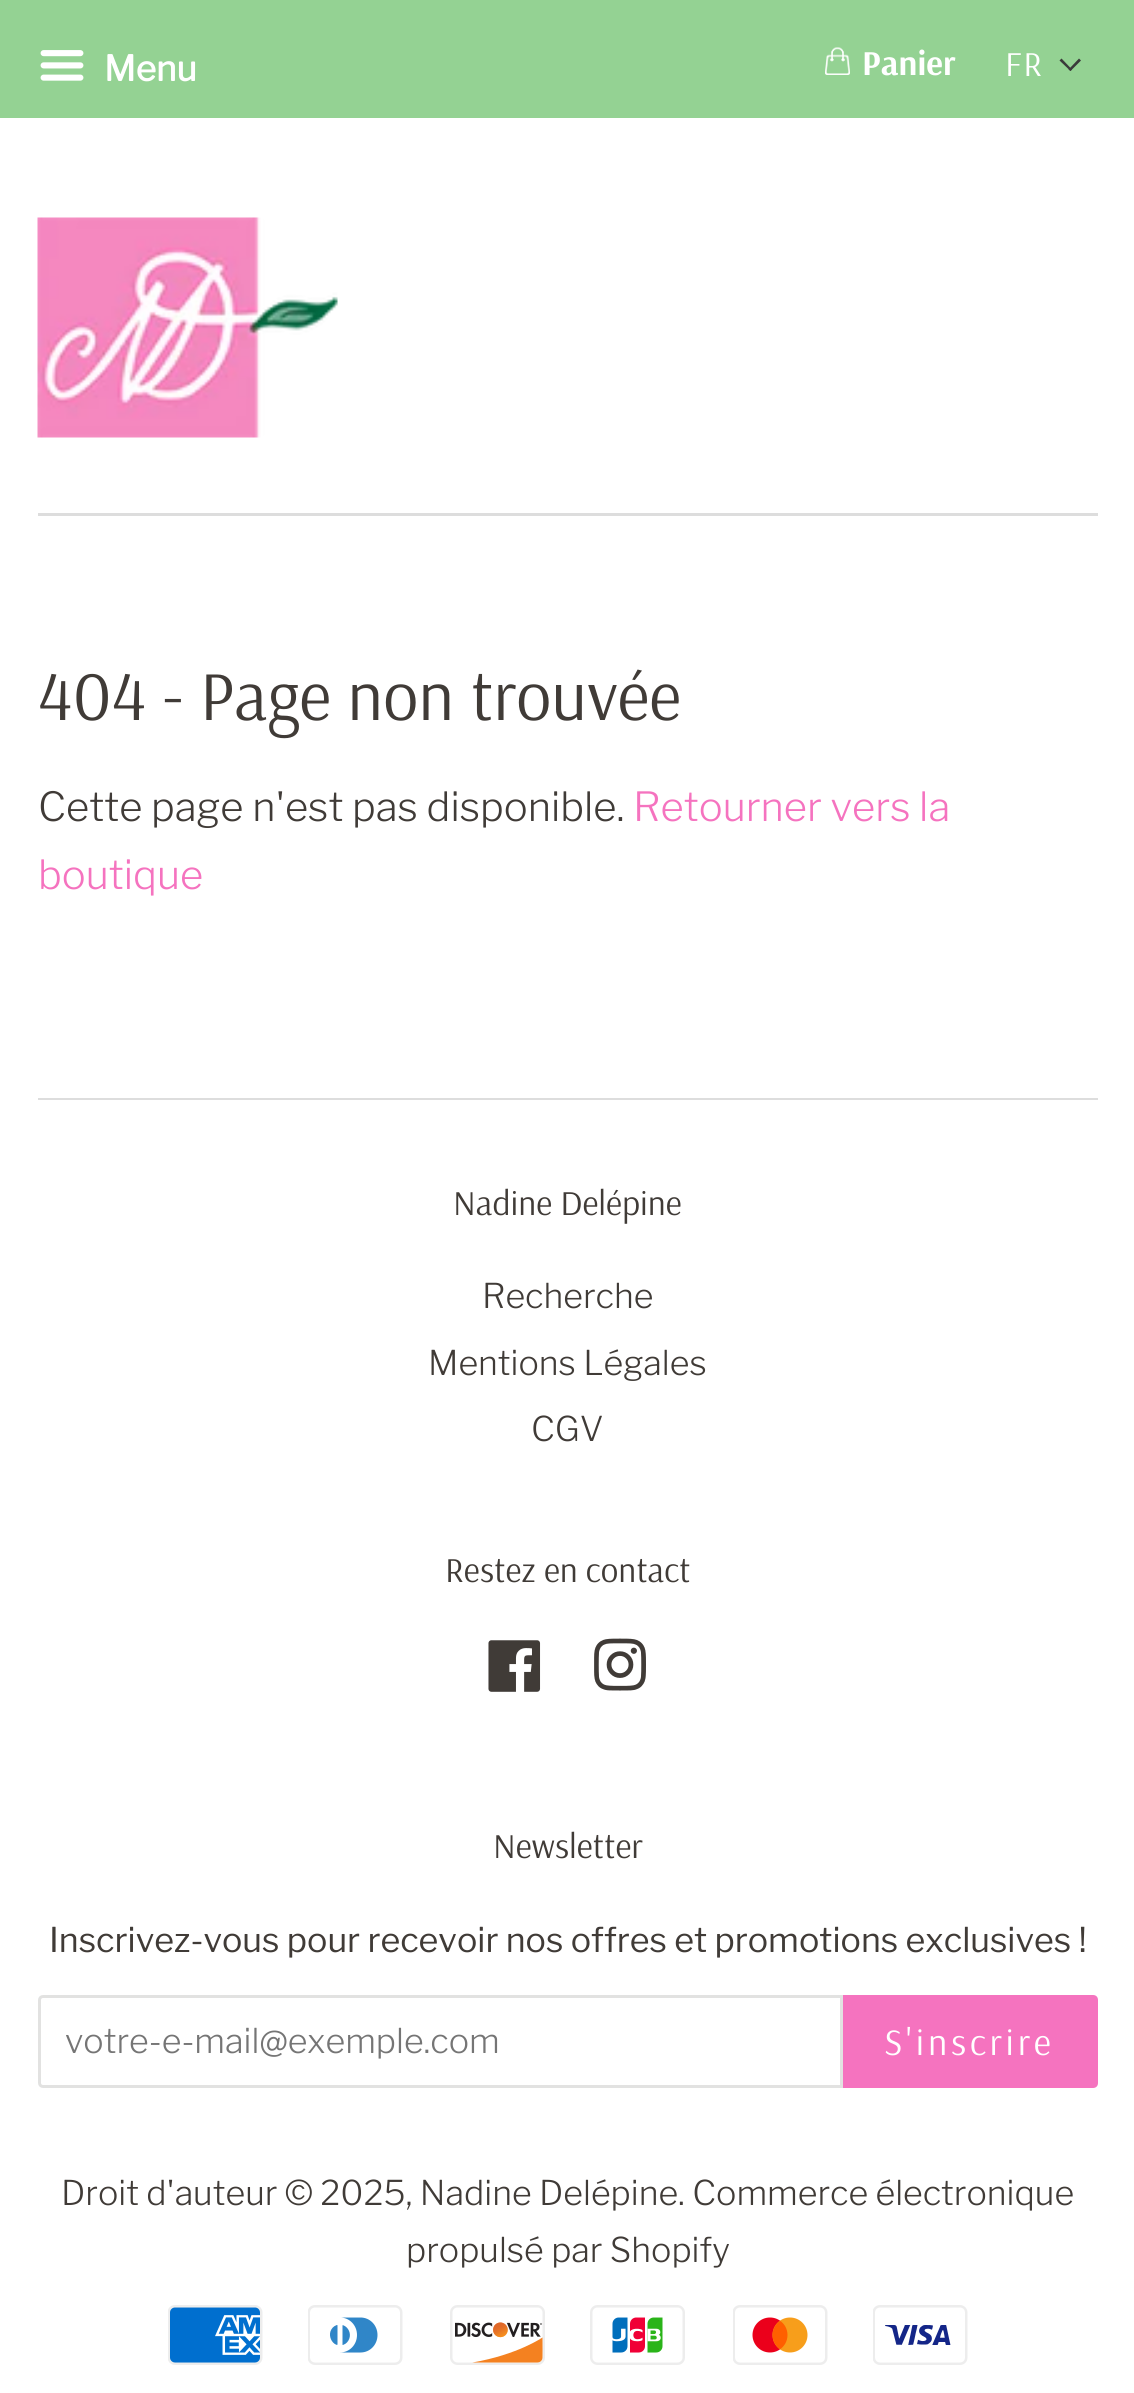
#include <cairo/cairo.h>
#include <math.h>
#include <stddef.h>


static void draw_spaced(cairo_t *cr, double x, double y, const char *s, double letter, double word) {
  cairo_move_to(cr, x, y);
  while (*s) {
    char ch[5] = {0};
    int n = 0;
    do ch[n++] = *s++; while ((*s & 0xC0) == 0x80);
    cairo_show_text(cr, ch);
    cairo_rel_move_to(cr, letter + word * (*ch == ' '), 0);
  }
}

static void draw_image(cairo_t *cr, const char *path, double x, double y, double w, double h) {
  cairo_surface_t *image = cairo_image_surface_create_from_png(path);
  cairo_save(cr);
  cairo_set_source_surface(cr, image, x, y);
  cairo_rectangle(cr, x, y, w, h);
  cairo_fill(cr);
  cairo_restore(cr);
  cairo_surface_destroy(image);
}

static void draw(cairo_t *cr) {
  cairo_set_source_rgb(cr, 1, 1, 1);
  cairo_paint(cr);
  cairo_set_source_rgb(cr, 148 / 255.0, 210 / 255.0, 147 / 255.0);
  cairo_rectangle(cr, 0, 0, 1134, 118);
  cairo_fill(cr);
  draw_image(cr, "images/1.png", 40, 50, 44, 31);
  draw_image(cr, "images/2.png", 825, 47, 25, 28);
  cairo_set_source_rgb(cr, 58 / 255.0, 58 / 255.0, 58 / 255.0);
  cairo_new_path(cr);
  cairo_move_to(cr, 1079, 58.5);
  cairo_line_to(cr, 1081, 60.5);
  cairo_line_to(cr, 1070.5, 71);
  cairo_line_to(cr, 1068.5, 69.5);
  cairo_close_path(cr);
  cairo_fill(cr);
  cairo_new_path(cr);
  cairo_move_to(cr, 1061.5, 58.5);
  cairo_line_to(cr, 1072, 69.5);
  cairo_line_to(cr, 1070.5, 71);
  cairo_line_to(cr, 1059.5, 60.5);
  cairo_close_path(cr);
  cairo_fill(cr);
  cairo_set_source_rgb(cr, 221 / 255.0, 221 / 255.0, 221 / 255.0);
  cairo_rectangle(cr, 38, 513, 1060, 3);
  cairo_fill(cr);
  draw_image(cr, "images/3.png", 37, 217, 301, 221);
  cairo_rectangle(cr, 38, 1098, 1060, 2);
  cairo_fill(cr);
  draw_image(cr, "images/4.png", 488, 1640, 53, 52);
  draw_image(cr, "images/5.png", 594, 1638, 52, 53);
  cairo_new_path(cr);
  cairo_move_to(cr, 43, 1996.5);
  cairo_line_to(cr, 841.5, 1996.5);
  cairo_line_to(cr, 841.5, 2086.5);
  cairo_line_to(cr, 43, 2086.5);
  cairo_curve_to(cr, 41, 2086.5, 39.5, 2085, 39.5, 2083);
  cairo_line_to(cr, 39.5, 2000);
  cairo_curve_to(cr, 39.5, 1998, 41, 1996.5, 43, 1996.5);
  cairo_close_path(cr);
  cairo_set_source_rgb(cr, 226 / 255.0, 226 / 255.0, 225 / 255.0);
  cairo_set_line_width(cr, 3);
  cairo_stroke(cr);
  cairo_set_source_rgb(cr, 245 / 255.0, 115 / 255.0, 191 / 255.0);
  cairo_new_path(cr);
  cairo_move_to(cr, 843, 1995);
  cairo_line_to(cr, 1093, 1995);
  cairo_curve_to(cr, 1096, 1995, 1098, 1997, 1098, 2000);
  cairo_line_to(cr, 1098, 2083);
  cairo_curve_to(cr, 1098, 2086, 1096, 2088, 1093, 2088);
  cairo_line_to(cr, 843, 2088);
  cairo_close_path(cr);
  cairo_fill(cr);
  draw_image(cr, "images/6.png", 168, 2305, 95, 60);
  draw_image(cr, "images/7.png", 308, 2305, 95, 60);
  draw_image(cr, "images/8.png", 450, 2305, 95, 60);
  draw_image(cr, "images/9.png", 590, 2305, 95, 60);
  draw_image(cr, "images/10.png", 733, 2305, 95, 60);
  draw_image(cr, "images/11.png", 873, 2305, 95, 60);
  cairo_select_font_face(cr, "Libre Franklin", CAIRO_FONT_SLANT_NORMAL, CAIRO_FONT_WEIGHT_BOLD);
  cairo_set_font_size(cr, 35);
  cairo_set_source_rgb(cr, 1, 1, 1);
  cairo_move_to(cr, 104, 81);
  cairo_show_text(cr, "Menu");
  cairo_select_font_face(cr, "Arsenal", CAIRO_FONT_SLANT_NORMAL, CAIRO_FONT_WEIGHT_BOLD);
  cairo_move_to(cr, 862, 75);
  cairo_show_text(cr, "Panier");
  cairo_select_font_face(cr, "Arsenal", CAIRO_FONT_SLANT_NORMAL, CAIRO_FONT_WEIGHT_NORMAL);
  draw_spaced(cr, 1005, 76, "FR", 2, 0);
  cairo_set_font_size(cr, 70);
  cairo_set_source_rgb(cr, 64 / 255.0, 59 / 255.0, 55 / 255.0);
  cairo_move_to(cr, 38, 720);
  cairo_show_text(cr, "404 - Page non trouvée");
  cairo_select_font_face(cr, "Libre Franklin Light", CAIRO_FONT_SLANT_NORMAL, CAIRO_FONT_WEIGHT_NORMAL);
  cairo_set_font_size(cr, 40);
  cairo_move_to(cr, 38, 821);
  cairo_show_text(cr, "Cette page n'est pas disponible.");
  cairo_set_source_rgb(cr, 245 / 255.0, 115 / 255.0, 191 / 255.0);
  cairo_move_to(cr, 633, 821);
  cairo_show_text(cr, "Retourner vers la");
  cairo_move_to(cr, 38, 889);
  cairo_show_text(cr, "boutique");
  cairo_select_font_face(cr, "Arsenal", CAIRO_FONT_SLANT_NORMAL, CAIRO_FONT_WEIGHT_NORMAL);
  cairo_set_font_size(cr, 35);
  cairo_set_source_rgb(cr, 64 / 255.0, 59 / 255.0, 55 / 255.0);
  cairo_move_to(cr, 453, 1215);
  cairo_show_text(cr, "Nadine Delépine");
  cairo_select_font_face(cr, "Libre Franklin Light", CAIRO_FONT_SLANT_NORMAL, CAIRO_FONT_WEIGHT_NORMAL);
  cairo_set_font_size(cr, 34);
  cairo_move_to(cr, 482, 1308);
  cairo_show_text(cr, "Recherche");
  cairo_move_to(cr, 428, 1375);
  cairo_show_text(cr, "Mentions Légales");
  cairo_move_to(cr, 531, 1441);
  cairo_show_text(cr, "CGV");
  cairo_select_font_face(cr, "Arsenal", CAIRO_FONT_SLANT_NORMAL, CAIRO_FONT_WEIGHT_NORMAL);
  cairo_set_font_size(cr, 35);
  cairo_move_to(cr, 445, 1582);
  cairo_show_text(cr, "Restez en contact");
  cairo_move_to(cr, 493, 1858);
  cairo_show_text(cr, "Newsletter");
  cairo_select_font_face(cr, "Libre Franklin", CAIRO_FONT_SLANT_NORMAL, CAIRO_FONT_WEIGHT_NORMAL);
  cairo_set_font_size(cr, 34);
  cairo_move_to(cr, 49, 1952);
  cairo_show_text(cr, "Inscrivez-vous pour recevoir nos offres et promotions exclusives !");
  cairo_select_font_face(cr, "Libre Franklin Light", CAIRO_FONT_SLANT_NORMAL, CAIRO_FONT_WEIGHT_NORMAL);
  cairo_set_source_rgb(cr, 117 / 255.0, 117 / 255.0, 117 / 255.0);
  cairo_move_to(cr, 65, 2053);
  cairo_show_text(cr, "votre-e-mail@exemple.com");
  cairo_select_font_face(cr, "Arsenal", CAIRO_FONT_SLANT_NORMAL, CAIRO_FONT_WEIGHT_NORMAL);
  cairo_set_font_size(cr, 37.5);
  cairo_set_source_rgb(cr, 1, 1, 1);
  draw_spaced(cr, 884, 2055, "S'inscrire", 3.75, 0);
  cairo_select_font_face(cr, "Libre Franklin Light", CAIRO_FONT_SLANT_NORMAL, CAIRO_FONT_WEIGHT_NORMAL);
  cairo_set_font_size(cr, 34);
  cairo_set_source_rgb(cr, 64 / 255.0, 59 / 255.0, 55 / 255.0);
  cairo_move_to(cr, 61, 2205);
  cairo_show_text(cr, "Droit d'auteur © 2025, Nadine Delépine. Commerce électronique");
  cairo_move_to(cr, 406, 2262);
  cairo_show_text(cr, "propulsé par Shopify");
}

int main(void) {
  cairo_surface_t *surface = cairo_image_surface_create(CAIRO_FORMAT_RGB24, 1134, 2393);
  cairo_t *cr = cairo_create(surface);
  cairo_font_options_t *options = cairo_font_options_create();
  cairo_font_options_set_hint_metrics(options, CAIRO_HINT_METRICS_OFF);
  cairo_font_options_set_hint_style(options, CAIRO_HINT_STYLE_NONE);
  cairo_set_font_options(cr, options);
  cairo_set_miter_limit(cr, 4);
  draw(cr);
  cairo_surface_write_to_png(surface, "out.png");
  cairo_font_options_destroy(options);
  cairo_destroy(cr);
  cairo_surface_destroy(surface);
  return 0;
}
